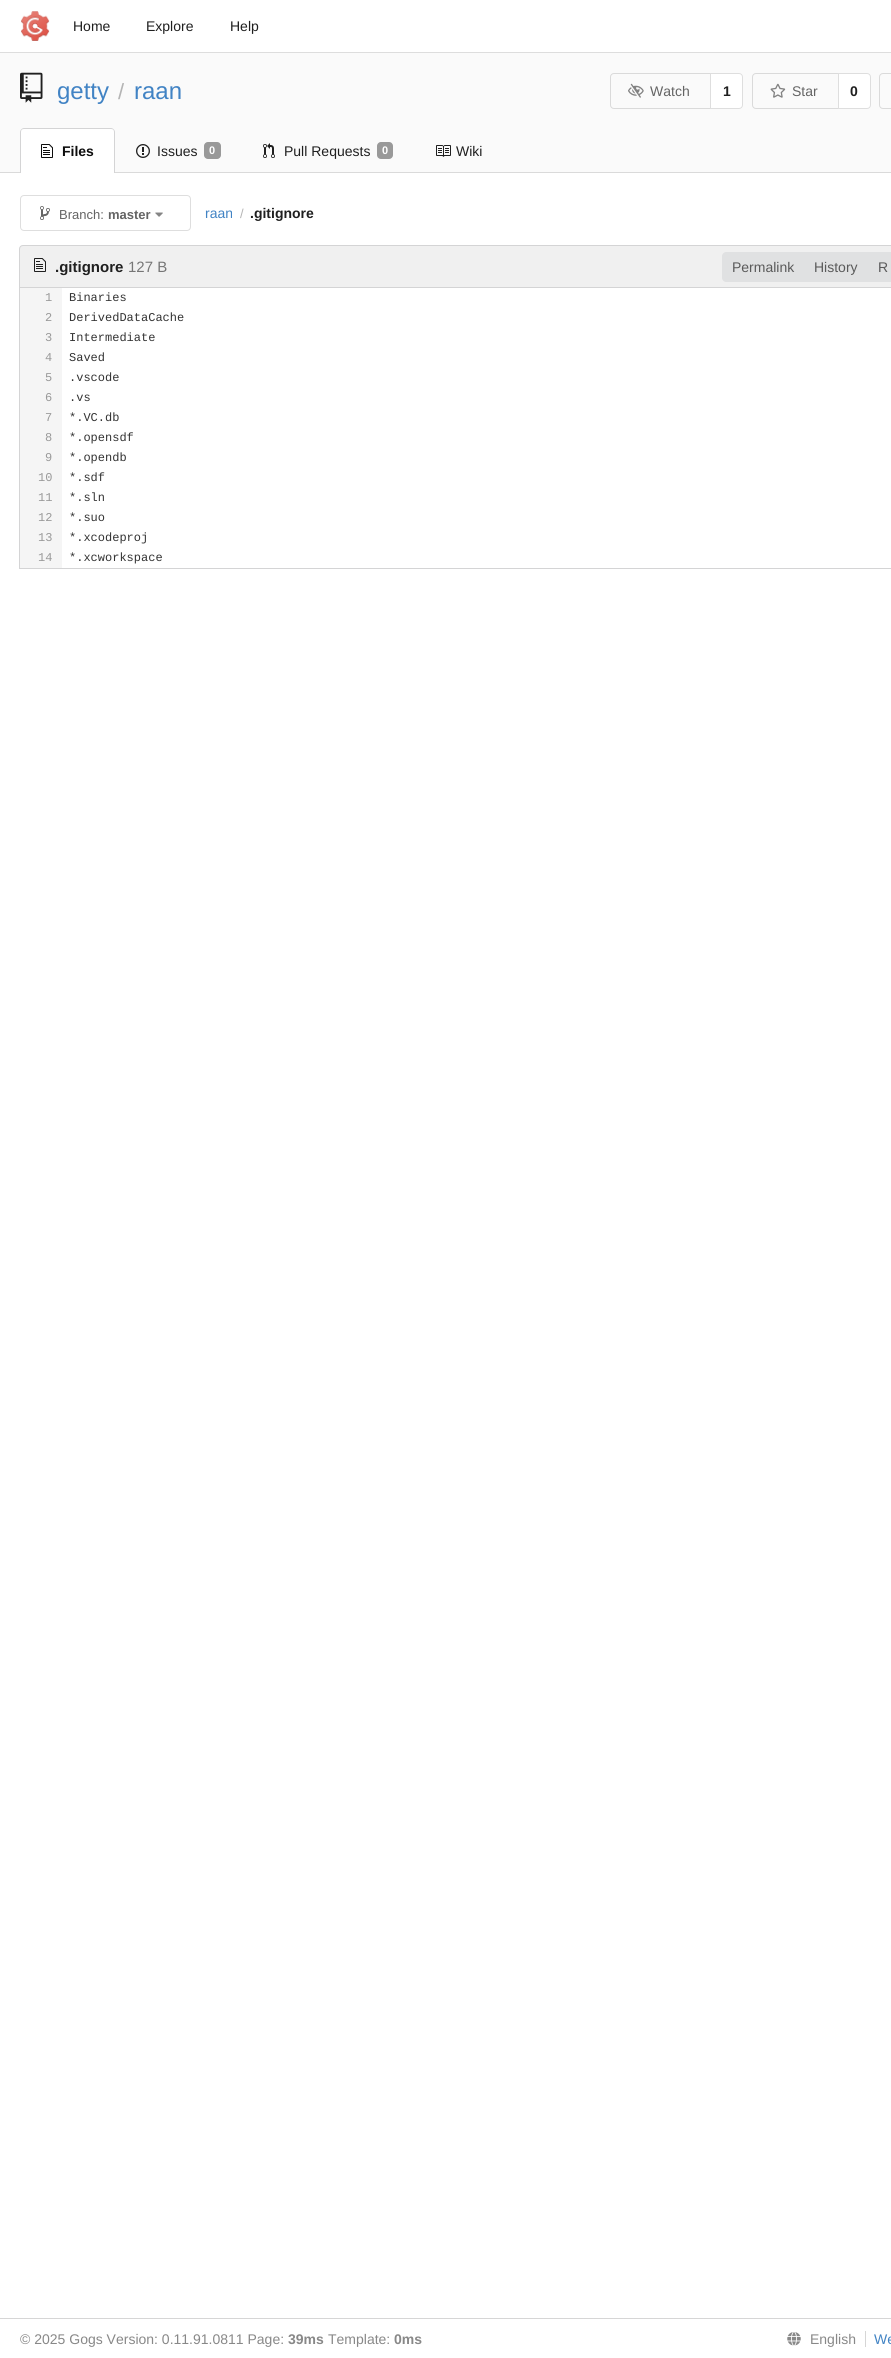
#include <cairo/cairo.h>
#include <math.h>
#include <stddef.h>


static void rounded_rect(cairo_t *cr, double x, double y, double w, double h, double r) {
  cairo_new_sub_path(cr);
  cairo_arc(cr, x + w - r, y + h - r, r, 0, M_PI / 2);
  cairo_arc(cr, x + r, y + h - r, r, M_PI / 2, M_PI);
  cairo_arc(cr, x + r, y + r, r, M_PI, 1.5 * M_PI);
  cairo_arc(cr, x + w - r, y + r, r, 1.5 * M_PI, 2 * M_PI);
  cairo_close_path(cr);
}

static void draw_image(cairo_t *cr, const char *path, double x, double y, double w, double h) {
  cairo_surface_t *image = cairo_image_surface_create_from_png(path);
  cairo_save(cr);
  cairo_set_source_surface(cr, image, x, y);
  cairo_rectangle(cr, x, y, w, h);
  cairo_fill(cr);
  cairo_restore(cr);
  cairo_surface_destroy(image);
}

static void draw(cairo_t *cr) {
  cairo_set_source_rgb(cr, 1, 1, 1);
  cairo_paint(cr);
  cairo_set_source_rgb(cr, 221 / 255.0, 221 / 255.0, 221 / 255.0);
  cairo_rectangle(cr, 0, 52, 891, 1);
  cairo_fill(cr);
  draw_image(cr, "images/1.png", 21, 11, 29, 30);
  cairo_set_source_rgb(cr, 250 / 255.0, 250 / 255.0, 250 / 255.0);
  cairo_rectangle(cr, 0, 53, 891, 119);
  cairo_fill(cr);
  draw_image(cr, "images/2.png", 20, 72, 23, 31);
  cairo_new_path(cr);
  cairo_move_to(cr, 614, 73.5);
  cairo_line_to(cr, 710.5, 73.5);
  cairo_line_to(cr, 710.5, 108.5);
  cairo_line_to(cr, 614, 108.5);
  cairo_curve_to(cr, 612, 108.5, 610.5, 107, 610.5, 105);
  cairo_line_to(cr, 610.5, 77);
  cairo_curve_to(cr, 610.5, 75, 612, 73.5, 614, 73.5);
  cairo_close_path(cr);
  cairo_set_source_rgb(cr, 218 / 255.0, 218 / 255.0, 218 / 255.0);
  cairo_set_line_width(cr, 1);
  cairo_stroke(cr);
  draw_image(cr, "images/3.png", 628, 83, 16, 15);
  cairo_set_source_rgb(cr, 1, 1, 1);
  cairo_new_path(cr);
  cairo_move_to(cr, 710.5, 73.5);
  cairo_line_to(cr, 739, 73.5);
  cairo_curve_to(cr, 741, 73.5, 742.5, 75, 742.5, 77);
  cairo_line_to(cr, 742.5, 105);
  cairo_curve_to(cr, 742.5, 107, 741, 108.5, 739, 108.5);
  cairo_line_to(cr, 710.5, 108.5);
  cairo_close_path(cr);
  cairo_fill_preserve(cr);
  cairo_set_source_rgb(cr, 222 / 255.0, 222 / 255.0, 222 / 255.0);
  cairo_stroke(cr);
  cairo_new_path(cr);
  cairo_move_to(cr, 756, 73.5);
  cairo_line_to(cr, 838.5, 73.5);
  cairo_line_to(cr, 838.5, 108.5);
  cairo_line_to(cr, 756, 108.5);
  cairo_curve_to(cr, 754, 108.5, 752.5, 107, 752.5, 105);
  cairo_line_to(cr, 752.5, 77);
  cairo_curve_to(cr, 752.5, 75, 754, 73.5, 756, 73.5);
  cairo_close_path(cr);
  cairo_set_source_rgb(cr, 218 / 255.0, 218 / 255.0, 218 / 255.0);
  cairo_stroke(cr);
  draw_image(cr, "images/4.png", 770, 83, 16, 15);
  cairo_set_source_rgb(cr, 1, 1, 1);
  cairo_new_path(cr);
  cairo_move_to(cr, 838.5, 73.5);
  cairo_line_to(cr, 867, 73.5);
  cairo_curve_to(cr, 869, 73.5, 870.5, 75, 870.5, 77);
  cairo_line_to(cr, 870.5, 105);
  cairo_curve_to(cr, 870.5, 107, 869, 108.5, 867, 108.5);
  cairo_line_to(cr, 838.5, 108.5);
  cairo_close_path(cr);
  cairo_fill_preserve(cr);
  cairo_set_source_rgb(cr, 222 / 255.0, 222 / 255.0, 222 / 255.0);
  cairo_stroke(cr);
  cairo_new_path(cr);
  cairo_move_to(cr, 883, 73.5);
  cairo_line_to(cr, 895.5, 73.5);
  cairo_line_to(cr, 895.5, 108.5);
  cairo_line_to(cr, 883, 108.5);
  cairo_curve_to(cr, 881, 108.5, 879.5, 107, 879.5, 105);
  cairo_line_to(cr, 879.5, 77);
  cairo_curve_to(cr, 879.5, 75, 881, 73.5, 883, 73.5);
  cairo_close_path(cr);
  cairo_set_source_rgb(cr, 218 / 255.0, 218 / 255.0, 218 / 255.0);
  cairo_stroke(cr);
  cairo_rectangle(cr, 0, 172, 891, 1);
  cairo_fill(cr);
  cairo_set_source_rgb(cr, 1, 1, 1);
  cairo_new_path(cr);
  cairo_move_to(cr, 24, 128);
  cairo_line_to(cr, 111, 128);
  cairo_curve_to(cr, 113, 128, 115, 130, 115, 132);
  cairo_line_to(cr, 115, 173);
  cairo_line_to(cr, 20, 173);
  cairo_line_to(cr, 20, 132);
  cairo_curve_to(cr, 20, 130, 22, 128, 24, 128);
  cairo_close_path(cr);
  cairo_fill(cr);
  cairo_set_source_rgb(cr, 212 / 255.0, 212 / 255.0, 213 / 255.0);
  cairo_set_fill_rule(cr, CAIRO_FILL_RULE_EVEN_ODD);
  cairo_new_path(cr);
  cairo_move_to(cr, 24, 128);
  cairo_line_to(cr, 111, 128);
  cairo_curve_to(cr, 113, 128, 115, 130, 115, 132);
  cairo_line_to(cr, 115, 173);
  cairo_line_to(cr, 20, 173);
  cairo_line_to(cr, 20, 132);
  cairo_curve_to(cr, 20, 130, 22, 128, 24, 128);
  cairo_close_path(cr);
  cairo_move_to(cr, 24, 129);
  cairo_line_to(cr, 111, 129);
  cairo_curve_to(cr, 113, 129, 114, 130, 114, 132);
  cairo_line_to(cr, 114, 173);
  cairo_line_to(cr, 21, 173);
  cairo_line_to(cr, 21, 132);
  cairo_curve_to(cr, 21, 130, 22, 129, 24, 129);
  cairo_close_path(cr);
  cairo_fill(cr);
  draw_image(cr, "images/5.png", 41, 144, 12, 14);
  draw_image(cr, "images/6.png", 136, 144, 14, 14);
  cairo_set_source_rgb(cr, 153 / 255.0, 153 / 255.0, 153 / 255.0);
  rounded_rect(cr, 204, 142, 17, 17, 4);
  cairo_fill(cr);
  draw_image(cr, "images/7.png", 263, 143, 12, 15);
  rounded_rect(cr, 377, 142, 16, 17, 4);
  cairo_fill(cr);
  draw_image(cr, "images/8.png", 436, 145, 15, 12);
  rounded_rect(cr, 20.5, 195.5, 170, 35, 3.5);
  cairo_set_source_rgb(cr, 222 / 255.0, 222 / 255.0, 222 / 255.0);
  cairo_stroke(cr);
  draw_image(cr, "images/9.png", 40, 206, 10, 14);
  draw_image(cr, "images/10.png", 155, 212, 8, 5);
  cairo_set_source_rgb(cr, 240 / 255.0, 240 / 255.0, 240 / 255.0);
  cairo_new_path(cr);
  cairo_move_to(cr, 23, 245.5);
  cairo_line_to(cr, 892, 245.5);
  cairo_curve_to(cr, 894, 245.5, 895.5, 247, 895.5, 249);
  cairo_line_to(cr, 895.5, 287.5);
  cairo_line_to(cr, 19.5, 287.5);
  cairo_line_to(cr, 19.5, 249);
  cairo_curve_to(cr, 19.5, 247, 21, 245.5, 23, 245.5);
  cairo_close_path(cr);
  cairo_fill_preserve(cr);
  cairo_set_source_rgb(cr, 212 / 255.0, 212 / 255.0, 213 / 255.0);
  cairo_stroke(cr);
  draw_image(cr, "images/11.png", 34, 258, 12, 14);
  cairo_set_source_rgb(cr, 224 / 255.0, 225 / 255.0, 226 / 255.0);
  cairo_new_path(cr);
  cairo_move_to(cr, 726, 252);
  cairo_line_to(cr, 804, 252);
  cairo_line_to(cr, 804, 282);
  cairo_line_to(cr, 726, 282);
  cairo_curve_to(cr, 724, 282, 722, 280, 722, 278);
  cairo_line_to(cr, 722, 256);
  cairo_curve_to(cr, 722, 254, 724, 252, 726, 252);
  cairo_close_path(cr);
  cairo_fill(cr);
  cairo_rectangle(cr, 804, 252, 87, 30);
  cairo_fill(cr);
  cairo_set_source_rgb(cr, 212 / 255.0, 212 / 255.0, 213 / 255.0);
  cairo_rectangle(cr, 19, 568, 872, 1);
  cairo_fill(cr);
  cairo_rectangle(cr, 19, 288, 1, 281);
  cairo_fill(cr);
  cairo_set_source_rgb(cr, 245 / 255.0, 245 / 255.0, 245 / 255.0);
  cairo_rectangle(cr, 20, 288, 42, 280);
  cairo_fill(cr);
  cairo_set_source_rgb(cr, 214 / 255.0, 214 / 255.0, 214 / 255.0);
  cairo_rectangle(cr, 0, 2318, 891, 1);
  cairo_fill(cr);
  draw_image(cr, "images/12.png", 787, 2332, 14, 14);
  cairo_rectangle(cr, 865, 2331, 1, 16);
  cairo_fill(cr);
  cairo_select_font_face(cr, "Liberation Sans", CAIRO_FONT_SLANT_NORMAL, CAIRO_FONT_WEIGHT_NORMAL);
  cairo_set_font_size(cr, 14);
  cairo_set_source_rgb(cr, 31 / 255.0, 31 / 255.0, 31 / 255.0);
  cairo_move_to(cr, 73, 31);
  cairo_show_text(cr, "Home");
  cairo_move_to(cr, 146, 31);
  cairo_show_text(cr, "Explore");
  cairo_move_to(cr, 230, 31);
  cairo_show_text(cr, "Help");
  cairo_set_font_size(cr, 24);
  cairo_set_source_rgb(cr, 65 / 255.0, 131 / 255.0, 196 / 255.0);
  cairo_move_to(cr, 57, 99);
  cairo_show_text(cr, "getty");
  cairo_set_font_size(cr, 22);
  cairo_set_source_rgb(cr, 180 / 255.0, 180 / 255.0, 180 / 255.0);
  cairo_move_to(cr, 118, 99);
  cairo_show_text(cr, "/");
  cairo_set_font_size(cr, 24);
  cairo_set_source_rgb(cr, 65 / 255.0, 131 / 255.0, 196 / 255.0);
  cairo_move_to(cr, 134, 99);
  cairo_show_text(cr, "raan");
  cairo_set_font_size(cr, 14);
  cairo_set_source_rgb(cr, 100 / 255.0, 100 / 255.0, 100 / 255.0);
  cairo_move_to(cr, 650, 96);
  cairo_show_text(cr, "Watch");
  cairo_select_font_face(cr, "Liberation Sans", CAIRO_FONT_SLANT_NORMAL, CAIRO_FONT_WEIGHT_BOLD);
  cairo_set_source_rgb(cr, 31 / 255.0, 31 / 255.0, 31 / 255.0);
  cairo_move_to(cr, 723, 96);
  cairo_show_text(cr, "1");
  cairo_select_font_face(cr, "Liberation Sans", CAIRO_FONT_SLANT_NORMAL, CAIRO_FONT_WEIGHT_NORMAL);
  cairo_set_source_rgb(cr, 100 / 255.0, 100 / 255.0, 100 / 255.0);
  cairo_move_to(cr, 792, 96);
  cairo_show_text(cr, "Star");
  cairo_select_font_face(cr, "Liberation Sans", CAIRO_FONT_SLANT_NORMAL, CAIRO_FONT_WEIGHT_BOLD);
  cairo_set_source_rgb(cr, 31 / 255.0, 31 / 255.0, 31 / 255.0);
  cairo_move_to(cr, 850, 96);
  cairo_show_text(cr, "0");
  cairo_set_source_rgb(cr, 13 / 255.0, 13 / 255.0, 13 / 255.0);
  cairo_move_to(cr, 62, 156);
  cairo_show_text(cr, "Files");
  cairo_select_font_face(cr, "Liberation Sans", CAIRO_FONT_SLANT_NORMAL, CAIRO_FONT_WEIGHT_NORMAL);
  cairo_set_source_rgb(cr, 31 / 255.0, 31 / 255.0, 31 / 255.0);
  cairo_move_to(cr, 157, 156);
  cairo_show_text(cr, "Issues");
  cairo_select_font_face(cr, "Liberation Sans", CAIRO_FONT_SLANT_NORMAL, CAIRO_FONT_WEIGHT_BOLD);
  cairo_set_font_size(cr, 11);
  cairo_set_source_rgb(cr, 1, 1, 1);
  cairo_move_to(cr, 209, 154);
  cairo_show_text(cr, "0");
  cairo_select_font_face(cr, "Liberation Sans", CAIRO_FONT_SLANT_NORMAL, CAIRO_FONT_WEIGHT_NORMAL);
  cairo_set_font_size(cr, 14);
  cairo_set_source_rgb(cr, 31 / 255.0, 31 / 255.0, 31 / 255.0);
  cairo_move_to(cr, 284, 156);
  cairo_show_text(cr, "Pull Requests");
  cairo_select_font_face(cr, "Liberation Sans", CAIRO_FONT_SLANT_NORMAL, CAIRO_FONT_WEIGHT_BOLD);
  cairo_set_font_size(cr, 11);
  cairo_set_source_rgb(cr, 1, 1, 1);
  cairo_move_to(cr, 382, 154);
  cairo_show_text(cr, "0");
  cairo_select_font_face(cr, "Liberation Sans", CAIRO_FONT_SLANT_NORMAL, CAIRO_FONT_WEIGHT_NORMAL);
  cairo_set_font_size(cr, 14);
  cairo_set_source_rgb(cr, 31 / 255.0, 31 / 255.0, 31 / 255.0);
  cairo_move_to(cr, 456, 156);
  cairo_show_text(cr, "Wiki");
  cairo_set_font_size(cr, 13);
  cairo_set_source_rgb(cr, 100 / 255.0, 100 / 255.0, 100 / 255.0);
  cairo_move_to(cr, 59, 219);
  cairo_show_text(cr, "Branch:");
  cairo_select_font_face(cr, "Liberation Sans", CAIRO_FONT_SLANT_NORMAL, CAIRO_FONT_WEIGHT_BOLD);
  cairo_move_to(cr, 108, 219);
  cairo_show_text(cr, "master");
  cairo_select_font_face(cr, "Liberation Sans", CAIRO_FONT_SLANT_NORMAL, CAIRO_FONT_WEIGHT_NORMAL);
  cairo_set_font_size(cr, 14);
  cairo_set_source_rgb(cr, 65 / 255.0, 131 / 255.0, 196 / 255.0);
  cairo_move_to(cr, 205, 218);
  cairo_show_text(cr, "raan");
  cairo_set_font_size(cr, 13);
  cairo_set_source_rgb(cr, 180 / 255.0, 180 / 255.0, 180 / 255.0);
  cairo_move_to(cr, 240, 218);
  cairo_show_text(cr, "/");
  cairo_select_font_face(cr, "Liberation Sans", CAIRO_FONT_SLANT_NORMAL, CAIRO_FONT_WEIGHT_BOLD);
  cairo_set_font_size(cr, 14);
  cairo_set_source_rgb(cr, 31 / 255.0, 31 / 255.0, 31 / 255.0);
  cairo_move_to(cr, 250, 218);
  cairo_show_text(cr, ".gitignore");
  cairo_set_font_size(cr, 15);
  cairo_move_to(cr, 55, 272);
  cairo_show_text(cr, ".gitignore");
  cairo_select_font_face(cr, "Liberation Sans", CAIRO_FONT_SLANT_NORMAL, CAIRO_FONT_WEIGHT_NORMAL);
  cairo_set_source_rgb(cr, 118 / 255.0, 118 / 255.0, 118 / 255.0);
  cairo_move_to(cr, 128, 272);
  cairo_show_text(cr, "127 B");
  cairo_set_font_size(cr, 14);
  cairo_set_source_rgb(cr, 90 / 255.0, 90 / 255.0, 90 / 255.0);
  cairo_move_to(cr, 732, 272);
  cairo_show_text(cr, "Permalink");
  cairo_move_to(cr, 814, 272);
  cairo_show_text(cr, "History");
  cairo_move_to(cr, 878, 272);
  cairo_show_text(cr, "R");
  cairo_select_font_face(cr, "Liberation Mono", CAIRO_FONT_SLANT_NORMAL, CAIRO_FONT_WEIGHT_NORMAL);
  cairo_set_font_size(cr, 12);
  cairo_set_source_rgb(cr, 153 / 255.0, 153 / 255.0, 153 / 255.0);
  cairo_move_to(cr, 45, 301);
  cairo_show_text(cr, "1");
  cairo_move_to(cr, 45, 321);
  cairo_show_text(cr, "2");
  cairo_move_to(cr, 45, 341);
  cairo_show_text(cr, "3");
  cairo_move_to(cr, 45, 361);
  cairo_show_text(cr, "4");
  cairo_move_to(cr, 45, 381);
  cairo_show_text(cr, "5");
  cairo_move_to(cr, 45, 401);
  cairo_show_text(cr, "6");
  cairo_move_to(cr, 45, 421);
  cairo_show_text(cr, "7");
  cairo_move_to(cr, 45, 441);
  cairo_show_text(cr, "8");
  cairo_move_to(cr, 45, 461);
  cairo_show_text(cr, "9");
  cairo_move_to(cr, 38, 481);
  cairo_show_text(cr, "10");
  cairo_move_to(cr, 38, 501);
  cairo_show_text(cr, "11");
  cairo_move_to(cr, 38, 521);
  cairo_show_text(cr, "12");
  cairo_move_to(cr, 38, 541);
  cairo_show_text(cr, "13");
  cairo_move_to(cr, 38, 561);
  cairo_show_text(cr, "14");
  cairo_set_source_rgb(cr, 51 / 255.0, 51 / 255.0, 51 / 255.0);
  cairo_move_to(cr, 69, 301);
  cairo_show_text(cr, "Binaries");
  cairo_move_to(cr, 69, 321);
  cairo_show_text(cr, "DerivedDataCache");
  cairo_move_to(cr, 69, 341);
  cairo_show_text(cr, "Intermediate");
  cairo_move_to(cr, 69, 361);
  cairo_show_text(cr, "Saved");
  cairo_move_to(cr, 69, 381);
  cairo_show_text(cr, ".vscode");
  cairo_move_to(cr, 69, 401);
  cairo_show_text(cr, ".vs");
  cairo_move_to(cr, 69, 421);
  cairo_show_text(cr, "*.VC.db");
  cairo_move_to(cr, 69, 441);
  cairo_show_text(cr, "*.opensdf");
  cairo_move_to(cr, 69, 461);
  cairo_show_text(cr, "*.opendb");
  cairo_move_to(cr, 69, 481);
  cairo_show_text(cr, "*.sdf");
  cairo_move_to(cr, 69, 501);
  cairo_show_text(cr, "*.sln");
  cairo_move_to(cr, 69, 521);
  cairo_show_text(cr, "*.suo");
  cairo_move_to(cr, 69, 541);
  cairo_show_text(cr, "*.xcodeproj");
  cairo_move_to(cr, 69, 561);
  cairo_show_text(cr, "*.xcworkspace");
  cairo_select_font_face(cr, "Liberation Sans", CAIRO_FONT_SLANT_NORMAL, CAIRO_FONT_WEIGHT_NORMAL);
  cairo_set_font_size(cr, 14);
  cairo_set_source_rgb(cr, 136 / 255.0, 136 / 255.0, 136 / 255.0);
  cairo_move_to(cr, 20, 2344);
  cairo_show_text(cr, "© 2025 Gogs Version: 0.11.91.0811 Page:");
  cairo_select_font_face(cr, "Liberation Sans", CAIRO_FONT_SLANT_NORMAL, CAIRO_FONT_WEIGHT_BOLD);
  cairo_move_to(cr, 288, 2344);
  cairo_show_text(cr, "39ms");
  cairo_select_font_face(cr, "Liberation Sans", CAIRO_FONT_SLANT_NORMAL, CAIRO_FONT_WEIGHT_NORMAL);
  cairo_move_to(cr, 328, 2344);
  cairo_show_text(cr, "Template:");
  cairo_select_font_face(cr, "Liberation Sans", CAIRO_FONT_SLANT_NORMAL, CAIRO_FONT_WEIGHT_BOLD);
  cairo_move_to(cr, 394, 2344);
  cairo_show_text(cr, "0ms");
  cairo_select_font_face(cr, "Liberation Sans", CAIRO_FONT_SLANT_NORMAL, CAIRO_FONT_WEIGHT_NORMAL);
  cairo_move_to(cr, 810, 2344);
  cairo_show_text(cr, "English");
  cairo_set_source_rgb(cr, 65 / 255.0, 131 / 255.0, 196 / 255.0);
  cairo_move_to(cr, 874, 2344);
  cairo_show_text(cr, "We");
}

int main(void) {
  cairo_surface_t *surface = cairo_image_surface_create(CAIRO_FORMAT_RGB24, 891, 2358);
  cairo_t *cr = cairo_create(surface);
  cairo_font_options_t *options = cairo_font_options_create();
  cairo_font_options_set_hint_metrics(options, CAIRO_HINT_METRICS_OFF);
  cairo_font_options_set_hint_style(options, CAIRO_HINT_STYLE_NONE);
  cairo_set_font_options(cr, options);
  cairo_set_miter_limit(cr, 4);
  draw(cr);
  cairo_surface_write_to_png(surface, "out.png");
  cairo_font_options_destroy(options);
  cairo_destroy(cr);
  cairo_surface_destroy(surface);
  return 0;
}
